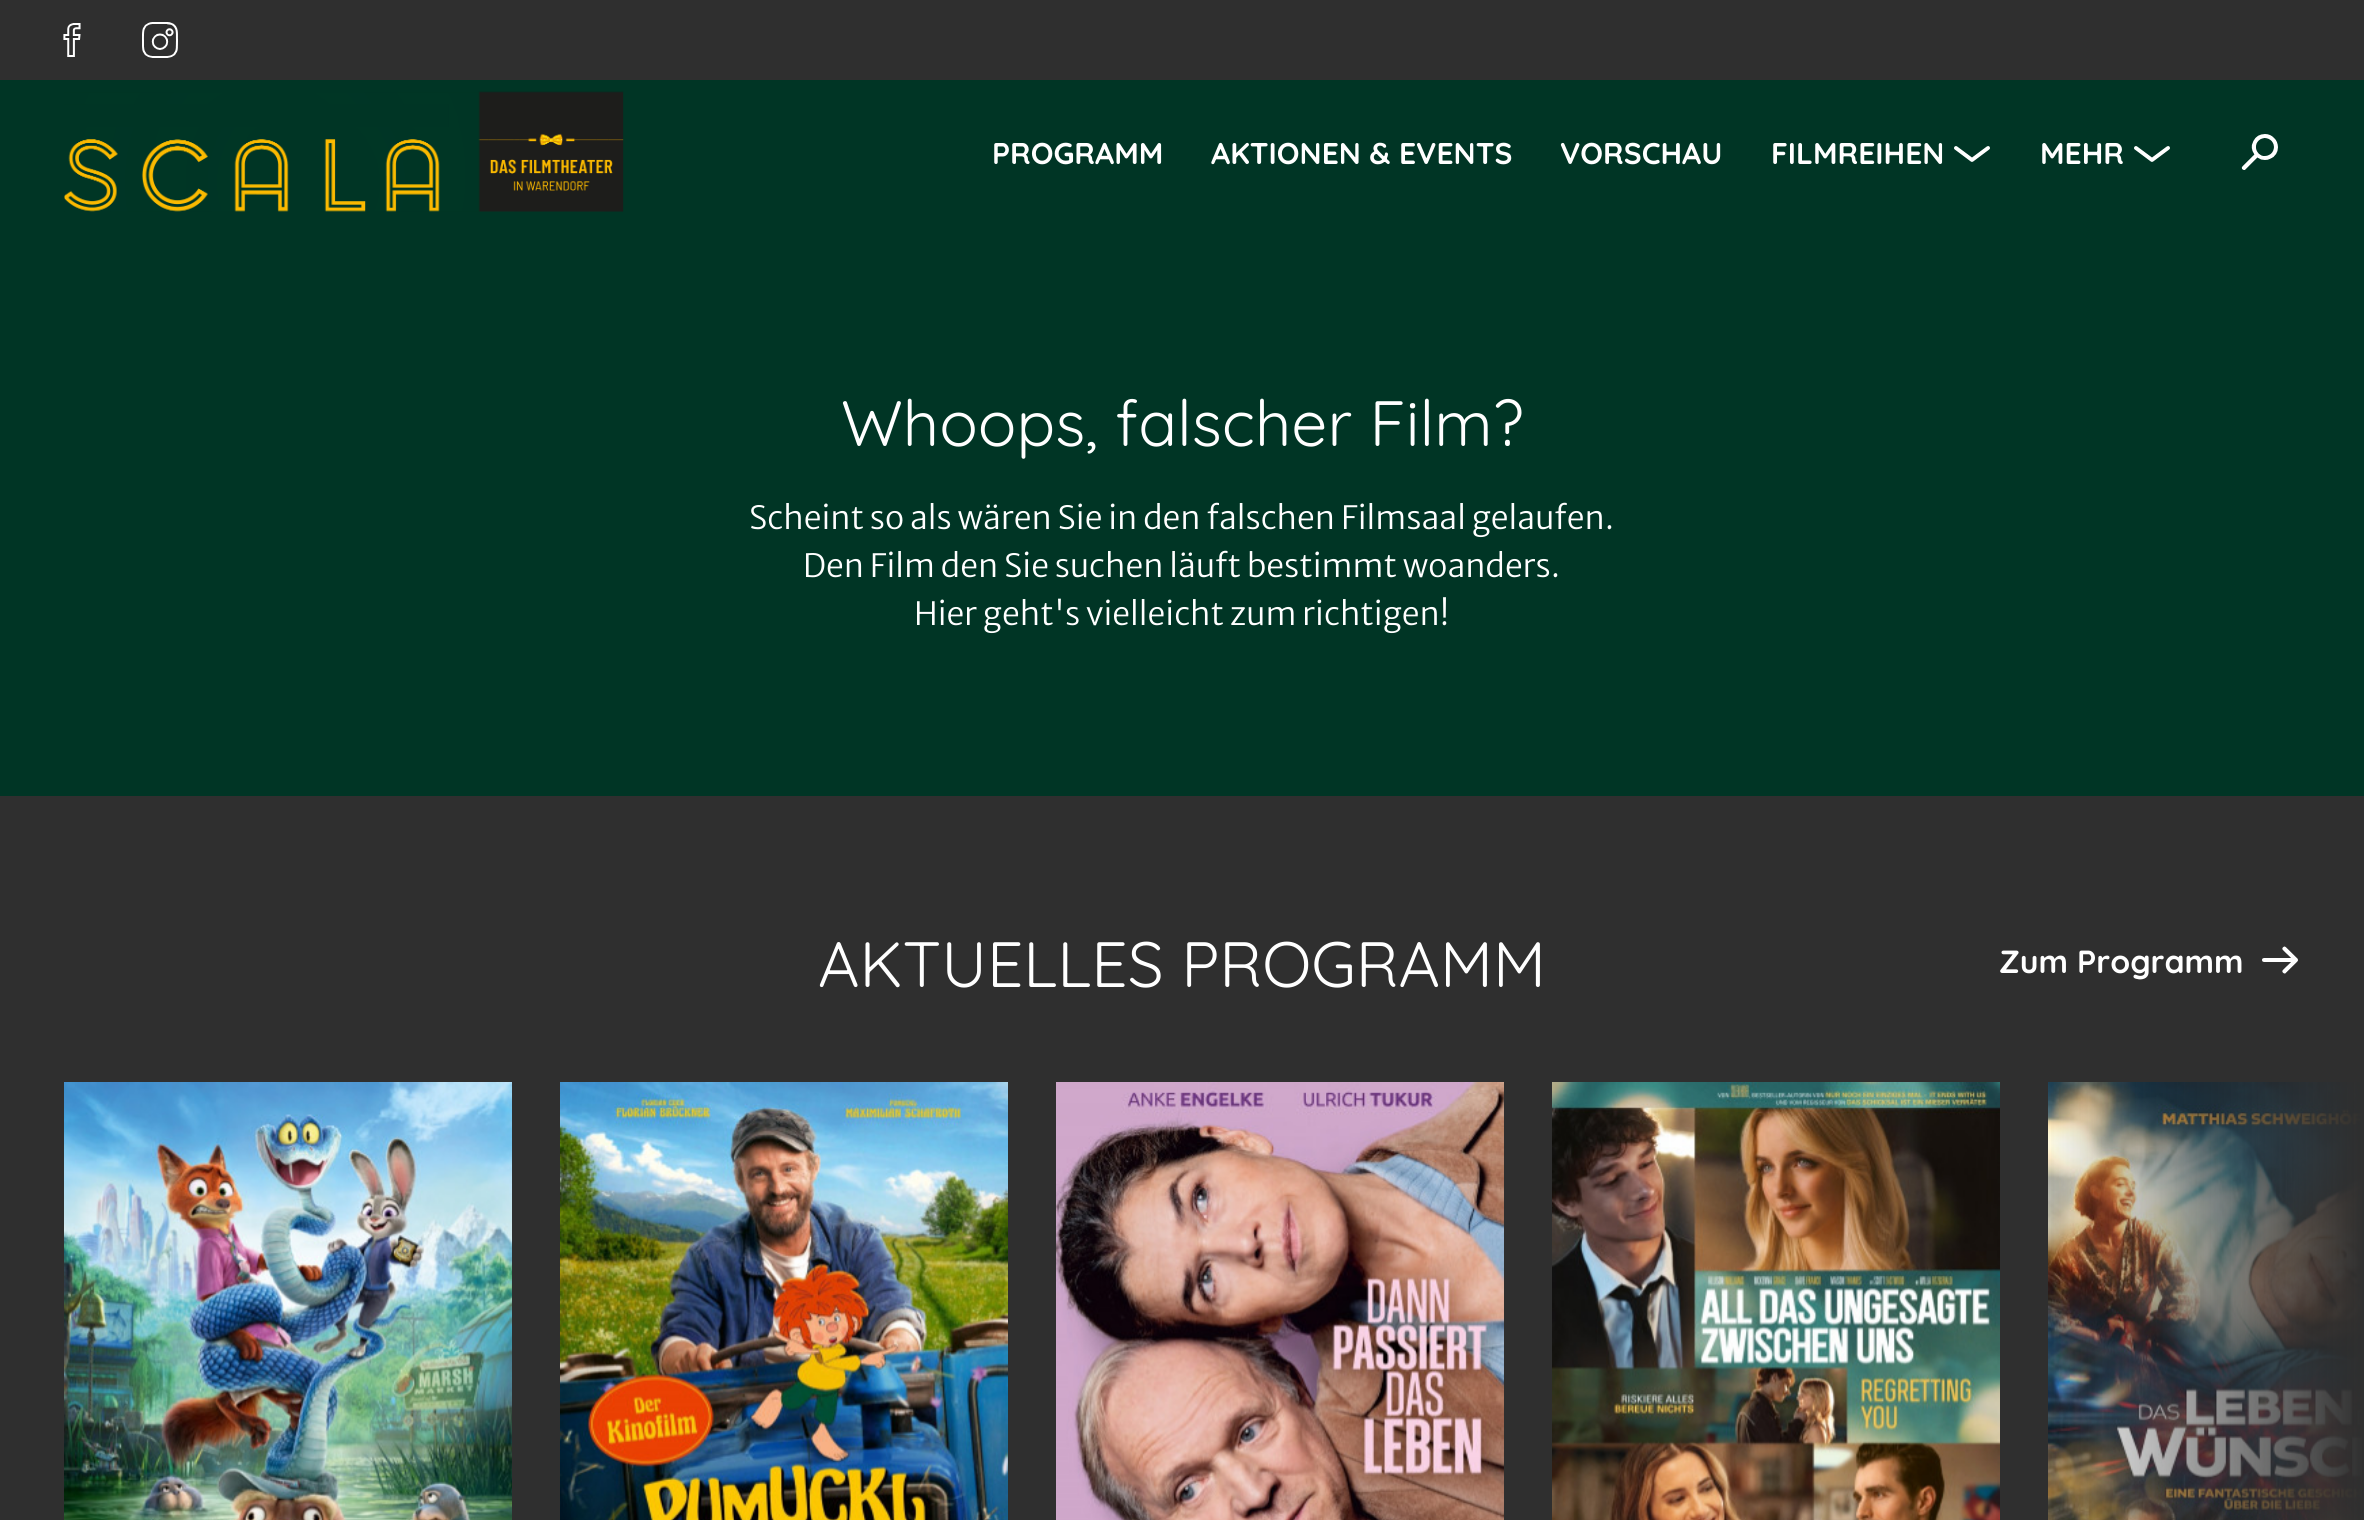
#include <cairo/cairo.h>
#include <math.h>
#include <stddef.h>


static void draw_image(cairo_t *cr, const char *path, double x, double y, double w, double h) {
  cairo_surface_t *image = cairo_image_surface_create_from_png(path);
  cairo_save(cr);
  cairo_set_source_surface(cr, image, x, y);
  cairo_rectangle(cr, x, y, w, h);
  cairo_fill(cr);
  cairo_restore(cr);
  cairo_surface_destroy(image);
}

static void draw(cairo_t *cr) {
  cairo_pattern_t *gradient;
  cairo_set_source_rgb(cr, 0, 53 / 255.0, 37 / 255.0);
  cairo_paint(cr);
  cairo_set_source_rgb(cr, 47 / 255.0, 47 / 255.0, 47 / 255.0);
  cairo_rectangle(cr, 0, 0, 2364, 80);
  cairo_fill(cr);
  draw_image(cr, "images/1.png", 63, 23, 18, 34);
  draw_image(cr, "images/2.png", 142, 22, 36, 36);
  draw_image(cr, "images/3.png", 64, 91, 560, 121);
  draw_image(cr, "images/4.png", 1954, 146, 36, 16);
  draw_image(cr, "images/4.png", 2134, 146, 36, 16);
  draw_image(cr, "images/5.png", 2241, 134, 37, 36);
  cairo_rectangle(cr, 0, 796, 2364, 724);
  cairo_fill(cr);
  draw_image(cr, "images/6.png", 2262, 946, 36, 28);
  draw_image(cr, "images/7.png", 64, 1082, 448, 438);
  draw_image(cr, "images/8.png", 560, 1082, 448, 438);
  draw_image(cr, "images/9.png", 1056, 1082, 448, 438);
  draw_image(cr, "images/10.png", 1552, 1082, 448, 438);
  draw_image(cr, "images/11.png", 2048, 1082, 314, 438);
  gradient = cairo_pattern_create_linear(2364, 1399, 2044, 1399);
  cairo_pattern_add_color_stop_rgba(gradient, 0, 47 / 255.0, 47 / 255.0, 47 / 255.0, 1);
  cairo_pattern_add_color_stop_rgba(gradient, 1, 47 / 255.0, 47 / 255.0, 47 / 255.0, 0);
  cairo_set_source(cr, gradient);
  cairo_pattern_destroy(gradient);
  cairo_rectangle(cr, 2051, 1082, 311, 438);
  cairo_fill(cr);
  cairo_select_font_face(cr, "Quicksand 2 Light", CAIRO_FONT_SLANT_NORMAL, CAIRO_FONT_WEIGHT_NORMAL);
  cairo_set_font_size(cr, 30);
  cairo_set_source_rgb(cr, 1, 1, 1);
  cairo_move_to(cr, 992, 164);
  cairo_show_text(cr, "PROGRAMM");
  cairo_move_to(cr, 1211, 164);
  cairo_show_text(cr, "AKTIONEN & EVENTS");
  cairo_move_to(cr, 1560, 164);
  cairo_show_text(cr, "VORSCHAU");
  cairo_move_to(cr, 1771, 164);
  cairo_show_text(cr, "FILMREIHEN");
  cairo_move_to(cr, 2040, 164);
  cairo_show_text(cr, "MEHR");
  cairo_select_font_face(cr, "Quicksand Light", CAIRO_FONT_SLANT_NORMAL, CAIRO_FONT_WEIGHT_NORMAL);
  cairo_set_font_size(cr, 64);
  cairo_move_to(cr, 841, 446);
  cairo_show_text(cr, "Whoops, falscher Film?");
  cairo_select_font_face(cr, "Merriweather Sans Light", CAIRO_FONT_SLANT_NORMAL, CAIRO_FONT_WEIGHT_NORMAL);
  cairo_set_font_size(cr, 32);
  cairo_move_to(cr, 749, 529);
  cairo_show_text(cr, "Scheint so als wären Sie in den falschen Filmsaal gelaufen.");
  cairo_move_to(cr, 803, 577);
  cairo_show_text(cr, "Den Film den Sie suchen läuft bestimmt woanders.");
  cairo_move_to(cr, 914, 625);
  cairo_show_text(cr, "Hier geht's vielleicht zum richtigen!");
  cairo_select_font_face(cr, "Quicksand Light", CAIRO_FONT_SLANT_NORMAL, CAIRO_FONT_WEIGHT_NORMAL);
  cairo_set_font_size(cr, 64);
  cairo_move_to(cr, 818, 987);
  cairo_show_text(cr, "AKTUELLES PROGRAMM");
  cairo_select_font_face(cr, "Quicksand 2 Light", CAIRO_FONT_SLANT_NORMAL, CAIRO_FONT_WEIGHT_NORMAL);
  cairo_set_font_size(cr, 32);
  cairo_move_to(cr, 1999, 973);
  cairo_show_text(cr, "Zum Programm");
}

int main(void) {
  cairo_surface_t *surface = cairo_image_surface_create(CAIRO_FORMAT_RGB24, 2364, 1520);
  cairo_t *cr = cairo_create(surface);
  cairo_font_options_t *options = cairo_font_options_create();
  cairo_font_options_set_hint_metrics(options, CAIRO_HINT_METRICS_OFF);
  cairo_font_options_set_hint_style(options, CAIRO_HINT_STYLE_NONE);
  cairo_set_font_options(cr, options);
  cairo_set_miter_limit(cr, 4);
  draw(cr);
  cairo_surface_write_to_png(surface, "out.png");
  cairo_font_options_destroy(options);
  cairo_destroy(cr);
  cairo_surface_destroy(surface);
  return 0;
}
